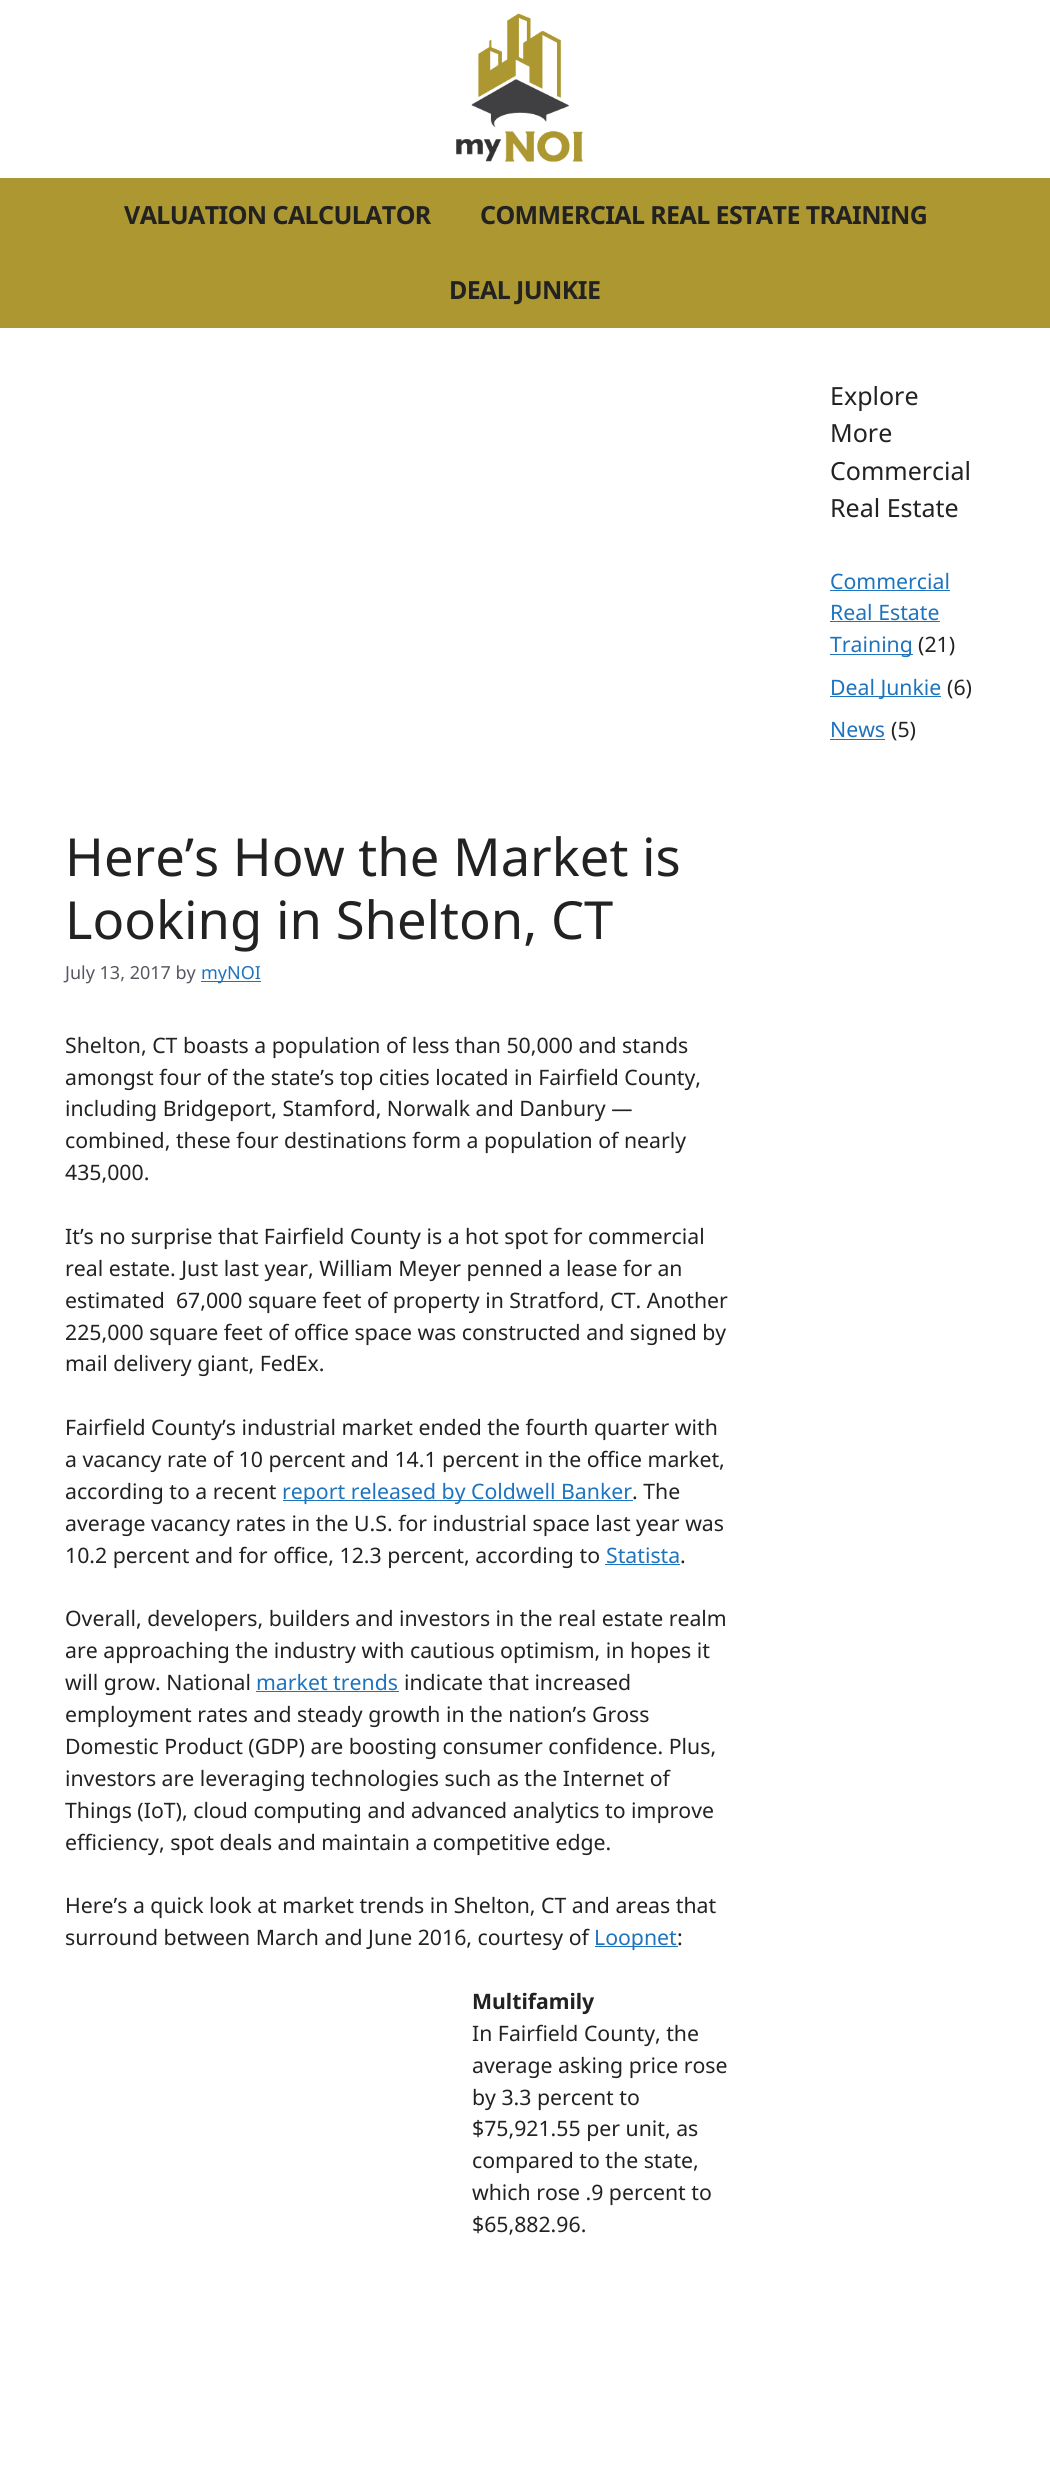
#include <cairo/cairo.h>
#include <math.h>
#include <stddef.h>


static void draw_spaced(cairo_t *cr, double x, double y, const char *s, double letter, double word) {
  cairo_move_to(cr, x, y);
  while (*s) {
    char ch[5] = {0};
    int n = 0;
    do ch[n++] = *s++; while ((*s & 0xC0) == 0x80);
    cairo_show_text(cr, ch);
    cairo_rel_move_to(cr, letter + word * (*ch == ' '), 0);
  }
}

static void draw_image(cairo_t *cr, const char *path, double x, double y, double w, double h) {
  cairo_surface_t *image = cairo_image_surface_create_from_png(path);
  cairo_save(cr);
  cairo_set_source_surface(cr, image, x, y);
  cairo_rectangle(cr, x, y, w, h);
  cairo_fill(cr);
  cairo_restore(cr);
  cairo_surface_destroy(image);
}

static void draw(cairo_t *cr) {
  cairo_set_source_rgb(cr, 1, 1, 1);
  cairo_paint(cr);
  draw_image(cr, "images/1.png", 456, 13, 127, 149);
  cairo_set_source_rgb(cr, 172 / 255.0, 151 / 255.0, 49 / 255.0);
  cairo_rectangle(cr, 0, 178, 1050, 150);
  cairo_fill(cr);
  cairo_set_source_rgb(cr, 30 / 255.0, 115 / 255.0, 190 / 255.0);
  cairo_rectangle(cr, 830, 590, 120, 1);
  cairo_fill(cr);
  cairo_rectangle(cr, 830, 621, 110, 1);
  cairo_fill(cr);
  cairo_rectangle(cr, 830, 654, 83, 1);
  cairo_fill(cr);
  cairo_rectangle(cr, 830, 696, 111, 1);
  cairo_fill(cr);
  cairo_rectangle(cr, 830, 739, 55, 1);
  cairo_fill(cr);
  cairo_rectangle(cr, 201, 981, 60, 1);
  cairo_fill(cr);
  cairo_rectangle(cr, 283, 1500, 350, 1);
  cairo_fill(cr);
  cairo_rectangle(cr, 605, 1564, 75, 1);
  cairo_fill(cr);
  cairo_rectangle(cr, 256, 1691, 143, 1);
  cairo_fill(cr);
  cairo_rectangle(cr, 595, 1946, 83, 1);
  cairo_fill(cr);
  cairo_select_font_face(cr, "Noto Sans", CAIRO_FONT_SLANT_NORMAL, CAIRO_FONT_WEIGHT_BOLD);
  cairo_set_font_size(cr, 25);
  cairo_set_source_rgb(cr, 34 / 255.0, 34 / 255.0, 34 / 255.0);
  draw_spaced(cr, 124, 224, "VALUATION CALCULATOR", -0.6, 0);
  draw_spaced(cr, 480, 224, "COMMERCIAL REAL ESTATE TRAINING", -0.6, 0);
  draw_spaced(cr, 449, 299, "DEAL JUNKIE", -0.6, 0);
  cairo_select_font_face(cr, "Noto Sans", CAIRO_FONT_SLANT_NORMAL, CAIRO_FONT_WEIGHT_NORMAL);
  cairo_move_to(cr, 830, 405);
  cairo_show_text(cr, "Explore");
  cairo_move_to(cr, 830, 442);
  cairo_show_text(cr, "More");
  cairo_move_to(cr, 830, 480);
  cairo_show_text(cr, "Commercial");
  cairo_move_to(cr, 830, 517);
  cairo_show_text(cr, "Real Estate");
  cairo_set_font_size(cr, 21.25);
  cairo_set_source_rgb(cr, 30 / 255.0, 115 / 255.0, 190 / 255.0);
  cairo_move_to(cr, 830, 589);
  cairo_show_text(cr, "Commercial");
  cairo_move_to(cr, 830, 620);
  cairo_show_text(cr, "Real Estate");
  cairo_move_to(cr, 830, 652);
  cairo_show_text(cr, "Training");
  cairo_set_source_rgb(cr, 34 / 255.0, 34 / 255.0, 34 / 255.0);
  cairo_move_to(cr, 918, 652);
  cairo_show_text(cr, "(21)");
  cairo_set_source_rgb(cr, 30 / 255.0, 115 / 255.0, 190 / 255.0);
  cairo_move_to(cr, 830, 695);
  cairo_show_text(cr, "Deal Junkie");
  cairo_set_source_rgb(cr, 34 / 255.0, 34 / 255.0, 34 / 255.0);
  cairo_move_to(cr, 947, 695);
  cairo_show_text(cr, "(6)");
  cairo_set_source_rgb(cr, 30 / 255.0, 115 / 255.0, 190 / 255.0);
  cairo_move_to(cr, 830, 737);
  cairo_show_text(cr, "News");
  cairo_set_source_rgb(cr, 34 / 255.0, 34 / 255.0, 34 / 255.0);
  cairo_move_to(cr, 891, 737);
  cairo_show_text(cr, "(5)");
  cairo_set_font_size(cr, 52.5);
  cairo_move_to(cr, 65, 876);
  cairo_show_text(cr, "Here’s How the Market is");
  cairo_move_to(cr, 65, 939);
  cairo_show_text(cr, "Looking in Shelton, CT");
  cairo_set_font_size(cr, 18);
  cairo_set_source_rgb(cr, 87 / 255.0, 87 / 255.0, 96 / 255.0);
  cairo_move_to(cr, 65, 979);
  cairo_show_text(cr, "July 13, 2017 by");
  cairo_set_source_rgb(cr, 30 / 255.0, 115 / 255.0, 190 / 255.0);
  cairo_move_to(cr, 201, 979);
  cairo_show_text(cr, "myNOI");
  cairo_set_font_size(cr, 21.25);
  cairo_set_source_rgb(cr, 34 / 255.0, 34 / 255.0, 34 / 255.0);
  cairo_move_to(cr, 65, 1053);
  cairo_show_text(cr, "Shelton, CT boasts a population of less than 50,000 and stands");
  cairo_move_to(cr, 65, 1085);
  cairo_show_text(cr, "amongst four of the state’s top cities located in Fairfield County,");
  cairo_move_to(cr, 65, 1116);
  cairo_show_text(cr, "including Bridgeport, Stamford, Norwalk and Danbury —");
  cairo_move_to(cr, 65, 1148);
  cairo_show_text(cr, "combined, these four destinations form a population of nearly");
  cairo_move_to(cr, 65, 1180);
  cairo_show_text(cr, "435,000.");
  cairo_move_to(cr, 65, 1244);
  cairo_show_text(cr, "It’s no surprise that Fairfield County is a hot spot for commercial");
  cairo_move_to(cr, 65, 1276);
  cairo_show_text(cr, "real estate. Just last year, William Meyer penned a lease for an");
  cairo_move_to(cr, 65, 1308);
  cairo_show_text(cr, "estimated  67,000 square feet of property in Stratford, CT. Another");
  cairo_move_to(cr, 65, 1340);
  cairo_show_text(cr, "225,000 square feet of office space was constructed and signed by");
  cairo_move_to(cr, 65, 1371);
  cairo_show_text(cr, "mail delivery giant, FedEx.");
  cairo_move_to(cr, 65, 1435);
  cairo_show_text(cr, "Fairfield County’s industrial market ended the fourth quarter with");
  cairo_move_to(cr, 65, 1467);
  cairo_show_text(cr, "a vacancy rate of 10 percent and 14.1 percent in the office market,");
  cairo_move_to(cr, 65, 1499);
  cairo_show_text(cr, "according to a recent");
  cairo_set_source_rgb(cr, 30 / 255.0, 115 / 255.0, 190 / 255.0);
  cairo_move_to(cr, 282, 1499);
  cairo_show_text(cr, "report released by Coldwell Banker");
  cairo_set_source_rgb(cr, 34 / 255.0, 34 / 255.0, 34 / 255.0);
  cairo_move_to(cr, 632, 1499);
  cairo_show_text(cr, ". The");
  cairo_move_to(cr, 65, 1531);
  cairo_show_text(cr, "average vacancy rates in the U.S. for industrial space last year was");
  cairo_move_to(cr, 65, 1563);
  cairo_show_text(cr, "10.2 percent and for office, 12.3 percent, according to");
  cairo_set_source_rgb(cr, 30 / 255.0, 115 / 255.0, 190 / 255.0);
  cairo_move_to(cr, 606, 1563);
  cairo_show_text(cr, "Statista");
  cairo_set_source_rgb(cr, 34 / 255.0, 34 / 255.0, 34 / 255.0);
  cairo_move_to(cr, 680, 1563);
  cairo_show_text(cr, ".");
  cairo_move_to(cr, 65, 1626);
  cairo_show_text(cr, "Overall, developers, builders and investors in the real estate realm");
  cairo_move_to(cr, 65, 1658);
  cairo_show_text(cr, "are approaching the industry with cautious optimism, in hopes it");
  cairo_move_to(cr, 65, 1690);
  cairo_show_text(cr, "will grow. National");
  cairo_set_source_rgb(cr, 30 / 255.0, 115 / 255.0, 190 / 255.0);
  cairo_move_to(cr, 256, 1690);
  cairo_show_text(cr, "market trends");
  cairo_set_source_rgb(cr, 34 / 255.0, 34 / 255.0, 34 / 255.0);
  cairo_move_to(cr, 404, 1690);
  cairo_show_text(cr, "indicate that increased");
  cairo_move_to(cr, 65, 1722);
  cairo_show_text(cr, "employment rates and steady growth in the nation’s Gross");
  cairo_move_to(cr, 65, 1754);
  cairo_show_text(cr, "Domestic Product (GDP) are boosting consumer confidence. Plus,");
  cairo_move_to(cr, 65, 1786);
  cairo_show_text(cr, "investors are leveraging technologies such as the Internet of");
  cairo_move_to(cr, 65, 1818);
  cairo_show_text(cr, "Things (IoT), cloud computing and advanced analytics to improve");
  cairo_move_to(cr, 65, 1850);
  cairo_show_text(cr, "efficiency, spot deals and maintain a competitive edge.");
  cairo_move_to(cr, 65, 1913);
  cairo_show_text(cr, "Here’s a quick look at market trends in Shelton, CT and areas that");
  cairo_move_to(cr, 65, 1945);
  cairo_show_text(cr, "surround between March and June 2016, courtesy of");
  cairo_set_source_rgb(cr, 30 / 255.0, 115 / 255.0, 190 / 255.0);
  cairo_move_to(cr, 594, 1945);
  cairo_show_text(cr, "Loopnet");
  cairo_set_source_rgb(cr, 34 / 255.0, 34 / 255.0, 34 / 255.0);
  cairo_move_to(cr, 677, 1945);
  cairo_show_text(cr, ":");
  cairo_select_font_face(cr, "Noto Sans", CAIRO_FONT_SLANT_NORMAL, CAIRO_FONT_WEIGHT_BOLD);
  cairo_move_to(cr, 472, 2009);
  cairo_show_text(cr, "Multifamily");
  cairo_select_font_face(cr, "Noto Sans", CAIRO_FONT_SLANT_NORMAL, CAIRO_FONT_WEIGHT_NORMAL);
  cairo_move_to(cr, 472, 2041);
  cairo_show_text(cr, "In Fairfield County, the");
  cairo_move_to(cr, 472, 2073);
  cairo_show_text(cr, "average asking price rose");
  cairo_move_to(cr, 472, 2105);
  cairo_show_text(cr, "by 3.3 percent to");
  cairo_move_to(cr, 472, 2136);
  cairo_show_text(cr, "$75,921.55 per unit, as");
  cairo_move_to(cr, 472, 2168);
  cairo_show_text(cr, "compared to the state,");
  cairo_move_to(cr, 472, 2200);
  cairo_show_text(cr, "which rose .9 percent to");
  cairo_move_to(cr, 472, 2232);
  cairo_show_text(cr, "$65,882.96.");
}

int main(void) {
  cairo_surface_t *surface = cairo_image_surface_create(CAIRO_FORMAT_RGB24, 1050, 2477);
  cairo_t *cr = cairo_create(surface);
  cairo_font_options_t *options = cairo_font_options_create();
  cairo_font_options_set_hint_metrics(options, CAIRO_HINT_METRICS_OFF);
  cairo_font_options_set_hint_style(options, CAIRO_HINT_STYLE_NONE);
  cairo_set_font_options(cr, options);
  cairo_set_miter_limit(cr, 4);
  draw(cr);
  cairo_surface_write_to_png(surface, "out.png");
  cairo_font_options_destroy(options);
  cairo_destroy(cr);
  cairo_surface_destroy(surface);
  return 0;
}
